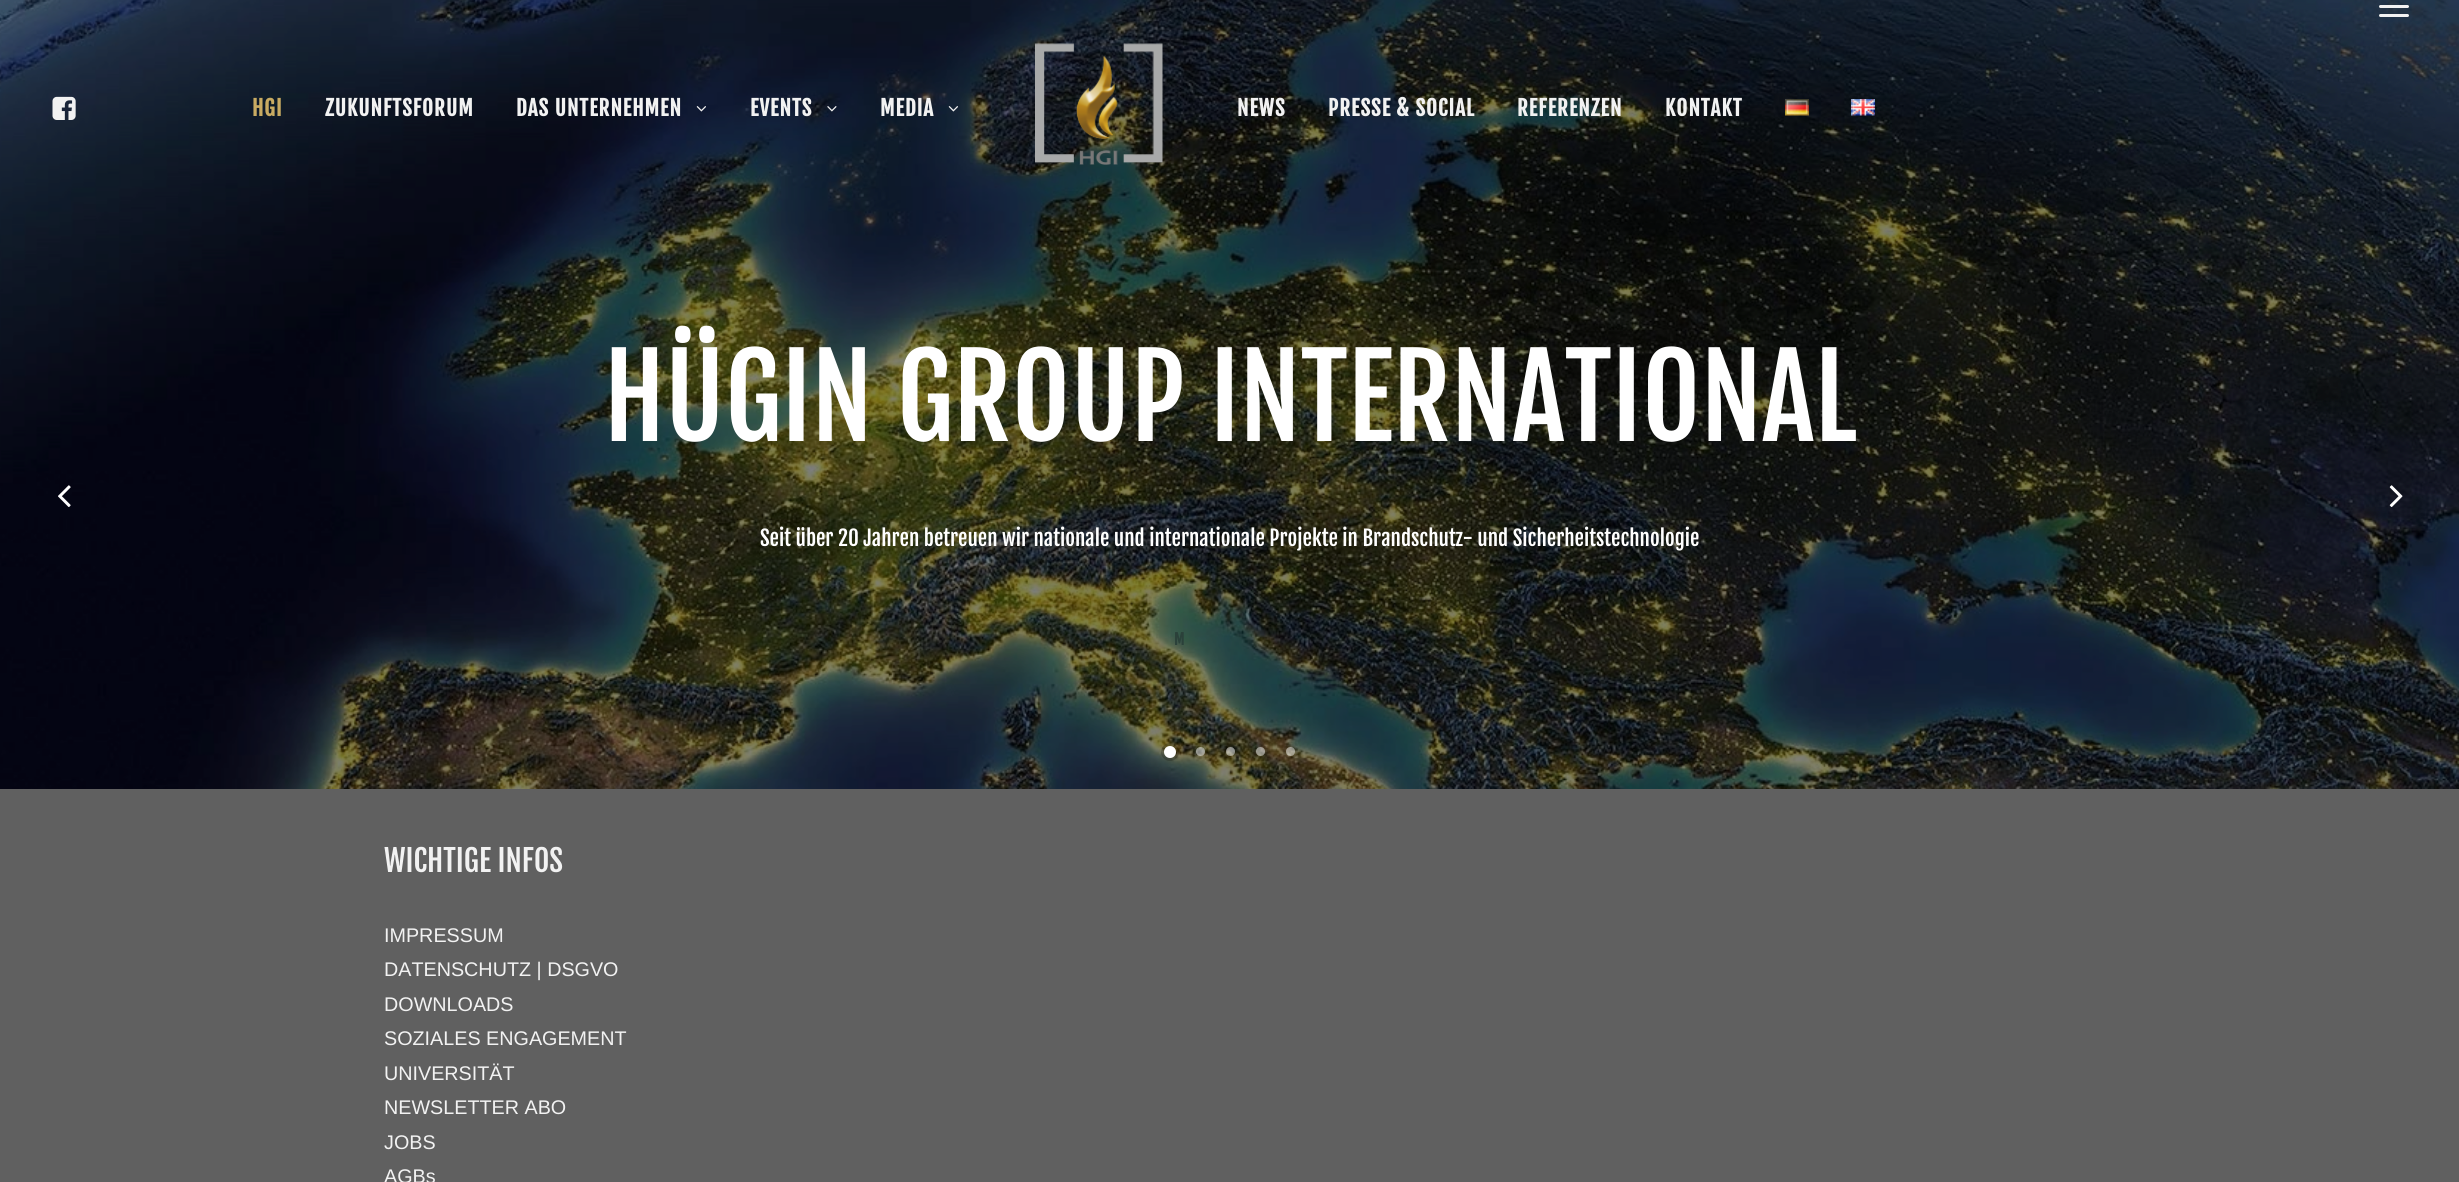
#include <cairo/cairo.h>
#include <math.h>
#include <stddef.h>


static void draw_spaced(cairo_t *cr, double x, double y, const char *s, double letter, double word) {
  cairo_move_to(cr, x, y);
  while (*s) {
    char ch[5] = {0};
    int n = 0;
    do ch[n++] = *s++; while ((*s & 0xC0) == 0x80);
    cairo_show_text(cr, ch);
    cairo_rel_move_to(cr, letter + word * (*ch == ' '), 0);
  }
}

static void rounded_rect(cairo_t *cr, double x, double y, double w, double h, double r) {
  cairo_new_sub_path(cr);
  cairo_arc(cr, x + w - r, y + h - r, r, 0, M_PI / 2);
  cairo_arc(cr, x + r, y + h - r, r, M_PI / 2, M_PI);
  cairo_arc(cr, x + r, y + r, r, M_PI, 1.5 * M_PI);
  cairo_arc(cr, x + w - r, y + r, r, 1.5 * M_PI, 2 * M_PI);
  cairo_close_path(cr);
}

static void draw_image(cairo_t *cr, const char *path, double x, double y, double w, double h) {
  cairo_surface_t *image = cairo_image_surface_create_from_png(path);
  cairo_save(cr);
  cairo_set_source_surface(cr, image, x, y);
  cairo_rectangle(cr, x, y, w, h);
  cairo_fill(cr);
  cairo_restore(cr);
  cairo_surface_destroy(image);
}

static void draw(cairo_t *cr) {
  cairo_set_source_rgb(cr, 1, 1, 1);
  cairo_paint(cr);
  draw_image(cr, "images/9.png", 0, 0, 2459, 789);
  cairo_set_source_rgb(cr, 242 / 255.0, 242 / 255.0, 242 / 255.0);
  rounded_rect(cr, 2379, 5, 30, 3, 1.5);
  cairo_fill(cr);
  rounded_rect(cr, 2379, 14, 30, 3, 1.5);
  cairo_fill(cr);
  draw_image(cr, "images/1.png", 52, 96, 24, 24);
  draw_image(cr, "images/2.png", 696, 106, 10, 6);
  draw_image(cr, "images/3.png", 827, 106, 10, 6);
  draw_image(cr, "images/4.png", 948, 106, 10, 6);
  draw_image(cr, "images/5.png", 1035, 43, 128, 122);
  draw_image(cr, "images/6.png", 1785, 99, 24, 17);
  draw_image(cr, "images/7.png", 1851, 99, 24, 17);
  draw_image(cr, "images/8.png", 58, 485, 13, 22);
  draw_image(cr, "images/10.png", 2389, 485, 14, 22);
  cairo_arc(cr, 1170, 752, 7.5, 0, 2 * M_PI);
  cairo_set_source_rgba(cr, 0, 0, 0, 0.2);
  cairo_set_line_width(cr, 3);
  cairo_stroke(cr);
  cairo_set_source_rgb(cr, 1, 1, 1);
  cairo_arc(cr, 1170, 752, 6, 0, 2 * M_PI);
  cairo_fill(cr);
  cairo_arc(cr, 1200.5, 751.5, 6.5, 0, 2 * M_PI);
  cairo_set_source_rgba(cr, 0, 0, 0, 0.1);
  cairo_set_line_width(cr, 2);
  cairo_stroke(cr);
  cairo_set_source_rgba(cr, 1, 1, 1, 0.5);
  cairo_arc(cr, 1200.5, 751.5, 4.5, 0, 2 * M_PI);
  cairo_fill(cr);
  cairo_arc(cr, 1230.5, 751.5, 6.5, 0, 2 * M_PI);
  cairo_set_source_rgba(cr, 0, 0, 0, 0.1);
  cairo_stroke(cr);
  cairo_set_source_rgba(cr, 1, 1, 1, 0.5);
  cairo_arc(cr, 1230.5, 751.5, 4.5, 0, 2 * M_PI);
  cairo_fill(cr);
  cairo_arc(cr, 1260.5, 751.5, 6.5, 0, 2 * M_PI);
  cairo_set_source_rgba(cr, 0, 0, 0, 0.1);
  cairo_stroke(cr);
  cairo_set_source_rgba(cr, 1, 1, 1, 0.5);
  cairo_arc(cr, 1260.5, 751.5, 4.5, 0, 2 * M_PI);
  cairo_fill(cr);
  cairo_arc(cr, 1290.5, 751.5, 6.5, 0, 2 * M_PI);
  cairo_set_source_rgba(cr, 0, 0, 0, 0.1);
  cairo_stroke(cr);
  cairo_set_source_rgba(cr, 1, 1, 1, 0.5);
  cairo_arc(cr, 1290.5, 751.5, 4.5, 0, 2 * M_PI);
  cairo_fill(cr);
  cairo_set_source_rgb(cr, 96 / 255.0, 96 / 255.0, 96 / 255.0);
  cairo_rectangle(cr, 0, 789, 2459, 393);
  cairo_fill(cr);
  cairo_select_font_face(cr, "Fjalla One", CAIRO_FONT_SLANT_NORMAL, CAIRO_FONT_WEIGHT_BOLD);
  cairo_set_font_size(cr, 21);
  cairo_set_source_rgb(cr, 201 / 255.0, 171 / 255.0, 98 / 255.0);
  draw_spaced(cr, 252, 116, "HGI", 1, 0);
  cairo_set_source_rgb(cr, 242 / 255.0, 242 / 255.0, 242 / 255.0);
  draw_spaced(cr, 325, 116, "ZUKUNFTSFORUM", 1, 0);
  draw_spaced(cr, 516, 116, "DAS UNTERNEHMEN", 1, 0);
  draw_spaced(cr, 750, 116, "EVENTS", 1, 0);
  draw_spaced(cr, 880, 116, "MEDIA", 1, 0);
  draw_spaced(cr, 1237, 116, "NEWS", 1, 0);
  draw_spaced(cr, 1328, 116, "PRESSE & SOCIAL", 1, 0);
  draw_spaced(cr, 1517, 116, "REFERENZEN", 1, 0);
  draw_spaced(cr, 1665, 116, "KONTAKT", 1, 0);
  cairo_select_font_face(cr, "Fjalla One", CAIRO_FONT_SLANT_NORMAL, CAIRO_FONT_WEIGHT_NORMAL);
  cairo_set_font_size(cr, 112.5);
  cairo_set_source_rgb(cr, 1, 1, 1);
  cairo_move_to(cr, 604, 441);
  cairo_show_text(cr, "HÜGIN GROUP INTERNATIONAL");
  cairo_set_font_size(cr, 21);
  cairo_move_to(cr, 760, 546);
  cairo_show_text(cr, "Seit über 20 Jahren betreuen wir nationale und internationale Projekte in Brandschutz- und Sicherheitstechnologie");
  cairo_select_font_face(cr, "Fjalla One", CAIRO_FONT_SLANT_NORMAL, CAIRO_FONT_WEIGHT_BOLD);
  cairo_set_font_size(cr, 15);
  cairo_set_source_rgb(cr, 43 / 255.0, 65 / 255.0, 58 / 255.0);
  draw_spaced(cr, 1174, 645, "M", 2, 0);
  cairo_select_font_face(cr, "Fjalla One", CAIRO_FONT_SLANT_NORMAL, CAIRO_FONT_WEIGHT_NORMAL);
  cairo_set_font_size(cr, 30);
  cairo_set_source_rgb(cr, 242 / 255.0, 242 / 255.0, 242 / 255.0);
  cairo_move_to(cr, 384, 872);
  cairo_show_text(cr, "WICHTIGE INFOS");
  cairo_select_font_face(cr, "Liberation Sans", CAIRO_FONT_SLANT_NORMAL, CAIRO_FONT_WEIGHT_NORMAL);
  cairo_set_font_size(cr, 19.75);
  cairo_move_to(cr, 384, 942);
  cairo_show_text(cr, "IMPRESSUM");
  cairo_move_to(cr, 384, 976);
  cairo_show_text(cr, "DATENSCHUTZ | DSGVO");
  cairo_move_to(cr, 384, 1011);
  cairo_show_text(cr, "DOWNLOADS");
  cairo_move_to(cr, 384, 1045);
  cairo_show_text(cr, "SOZIALES ENGAGEMENT");
  cairo_move_to(cr, 384, 1080);
  cairo_show_text(cr, "UNIVERSITÄT");
  cairo_move_to(cr, 384, 1114);
  cairo_show_text(cr, "NEWSLETTER ABO");
  cairo_move_to(cr, 384, 1149);
  cairo_show_text(cr, "JOBS");
  cairo_move_to(cr, 384, 1183);
  cairo_show_text(cr, "AGBs");
}

int main(void) {
  cairo_surface_t *surface = cairo_image_surface_create(CAIRO_FORMAT_RGB24, 2459, 1182);
  cairo_t *cr = cairo_create(surface);
  cairo_font_options_t *options = cairo_font_options_create();
  cairo_font_options_set_hint_metrics(options, CAIRO_HINT_METRICS_OFF);
  cairo_font_options_set_hint_style(options, CAIRO_HINT_STYLE_NONE);
  cairo_set_font_options(cr, options);
  cairo_set_miter_limit(cr, 4);
  draw(cr);
  cairo_surface_write_to_png(surface, "out.png");
  cairo_font_options_destroy(options);
  cairo_destroy(cr);
  cairo_surface_destroy(surface);
  return 0;
}
